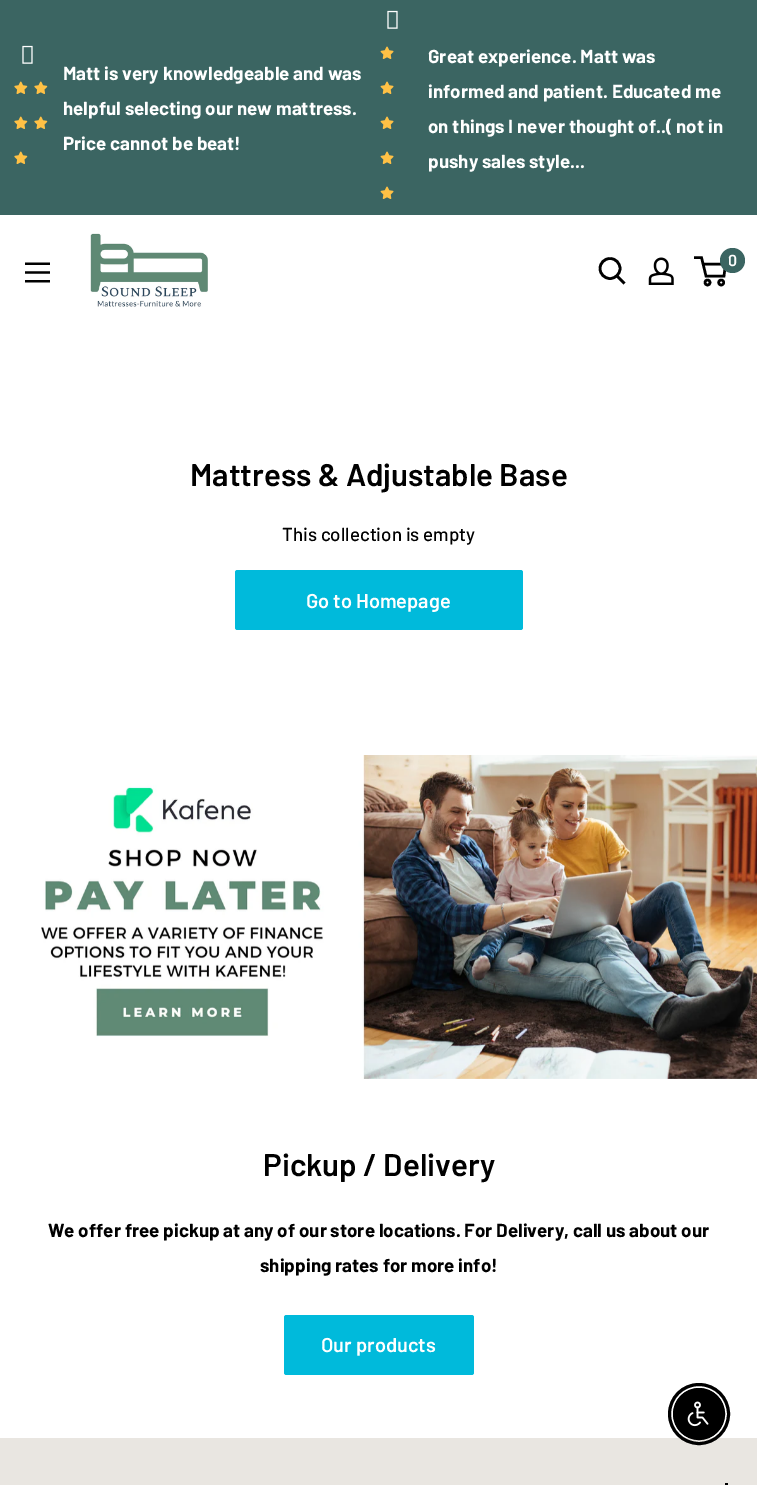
%!PS-Adobe-3.0
%%BoundingBox: 0 0 757 1485
%%LanguageLevel: 3
%%Pages: 1
%%EndComments
%%BeginProlog
/setink { 3 { 255 div 3 1 roll } repeat setrgbcolor } def
/usefont { [ exch dup neg 0 0 3 -1 roll 0 0 ] selectfont } def
/drawtext { setink usefont moveto show } def
/fillbox { setink rectfill } def
/disc { newpath 0 360 arc closepath } def
/rrect { 5 dict begin { /r /h /w /y /x } { exch def } forall
  x r add y moveto x w add y 2 copy h add r arct x w add y h add x 1 index r arct
  x y h add x y r arct x y 2 copy exch w add exch r arct closepath end } def
/drawimage { 5 dict begin { /h /w /y /x /name } { exch def } forall
  gsave x y translate w h scale
  w h 8 [w 0 0 h 0 0] name (r) file false 3 colorimage grestore end } def
%%EndProlog
%%BeginSetup
<< /PageSize [757 1485] >> setpagedevice
%%EndSetup
%%Page: 1 1
0 1485 translate 1 -1 scale
4 setmiterlimit
0 0 757 1485 255 255 255 fillbox
0 0 757 215 59 101 98 fillbox
(assets/img1.rgb) 22 45 11 19 drawimage
(assets/img2.rgb) 14 81 14 13 drawimage
(assets/img2.rgb) 34 81 14 13 drawimage
(assets/img2.rgb) 14 116 14 13 drawimage
(assets/img2.rgb) 34 116 14 13 drawimage
(assets/img2.rgb) 14 151 14 13 drawimage
(Matt is very knowledgeable and was) 63 80 /Barlow-Bold 18.75 255 255 255 drawtext
(helpful selecting our new mattress.) 63 115 /Barlow-Bold 18.75 255 255 255 drawtext
(Price cannot be beat!) 63 150 /Barlow-Bold 18.75 255 255 255 drawtext
(assets/img1.rgb) 387 10 11 19 drawimage
(assets/img3.rgb) 380 46 14 13 drawimage
(assets/img3.rgb) 380 81 14 13 drawimage
(assets/img3.rgb) 380 116 14 13 drawimage
(assets/img3.rgb) 380 151 14 13 drawimage
(assets/img3.rgb) 380 186 14 13 drawimage
(Great experience. Matt was) 428 63 /Barlow-Bold 18.75 255 255 255 drawtext
(informed and patient. Educated me) 428 98 /Barlow-Bold 18.75 255 255 255 drawtext
(on things I never thought of..\( not in) 428 133 /Barlow-Bold 18.75 255 255 255 drawtext
(pushy sales style...) 428 168 /Barlow-Bold 18.75 255 255 255 drawtext
(assets/img4.rgb) 90 233 118 74 drawimage
0 0 0 setink
2.6 setlinewidth
2 setlinecap
623.5 282.5 moveto 617 276 lineto stroke
0 setlinecap
610 268.5 10 disc stroke
(assets/img5.rgb) 648 257 26 28 drawimage
2.5 setlinewidth
707.5 282.5 2.5 disc stroke
721.2 282.5 2.5 disc stroke
703 264 moveto 725.5 264 lineto 724 276 lineto 706 276 lineto 701.5 257.5 lineto 694 257.5 lineto stroke
59 101 98 setink
732.5 260.5 12.5 disc fill
(0) 728 266 /Barlow-SemiBold 16 255 255 255 drawtext
(assets/img6.rgb) 25 262 25 21 drawimage
(Mattress & Adjustable Base) 190 486 /Barlow-SemiBold 31.25 0 0 0 drawtext
(This collection is empty) 282 541 /Barlow-Medium 18.75 0 0 0 drawtext
0 186 219 setink
235 570 288 60 2.5 rrect fill
(Go to Homepage) 306 608 /Barlow-SemiBold 20 255 255 255 drawtext
(assets/img7.rgb) 41 755 716 324 drawimage
(Pickup / Delivery) 263 1176 /Barlow-SemiBold 31.25 0 0 0 drawtext
(We offer free pickup at any of our store locations. For Delivery, call us about our) 48 1237 /Barlow-Bold 18.75 0 0 0 drawtext
(shipping rates for more info!) 260 1272 /Barlow-Bold 18.75 0 0 0 drawtext
0 186 219 setink
284 1315 190 60 2.5 rrect fill
(Our products) 321 1352 /Barlow-SemiBold 20 255 255 255 drawtext
0 1438 757 47 233 230 225 fillbox
0 0 0 setink
3 setlinewidth
699 1414 29.5 disc stroke
699 1414 25.5 disc gsave fill grestore
1 setlinewidth
stroke
(assets/img8.rgb) 687 1401 22 26 drawimage
725 1483 3 2 0 0 0 fillbox
showpage
%%EOF
